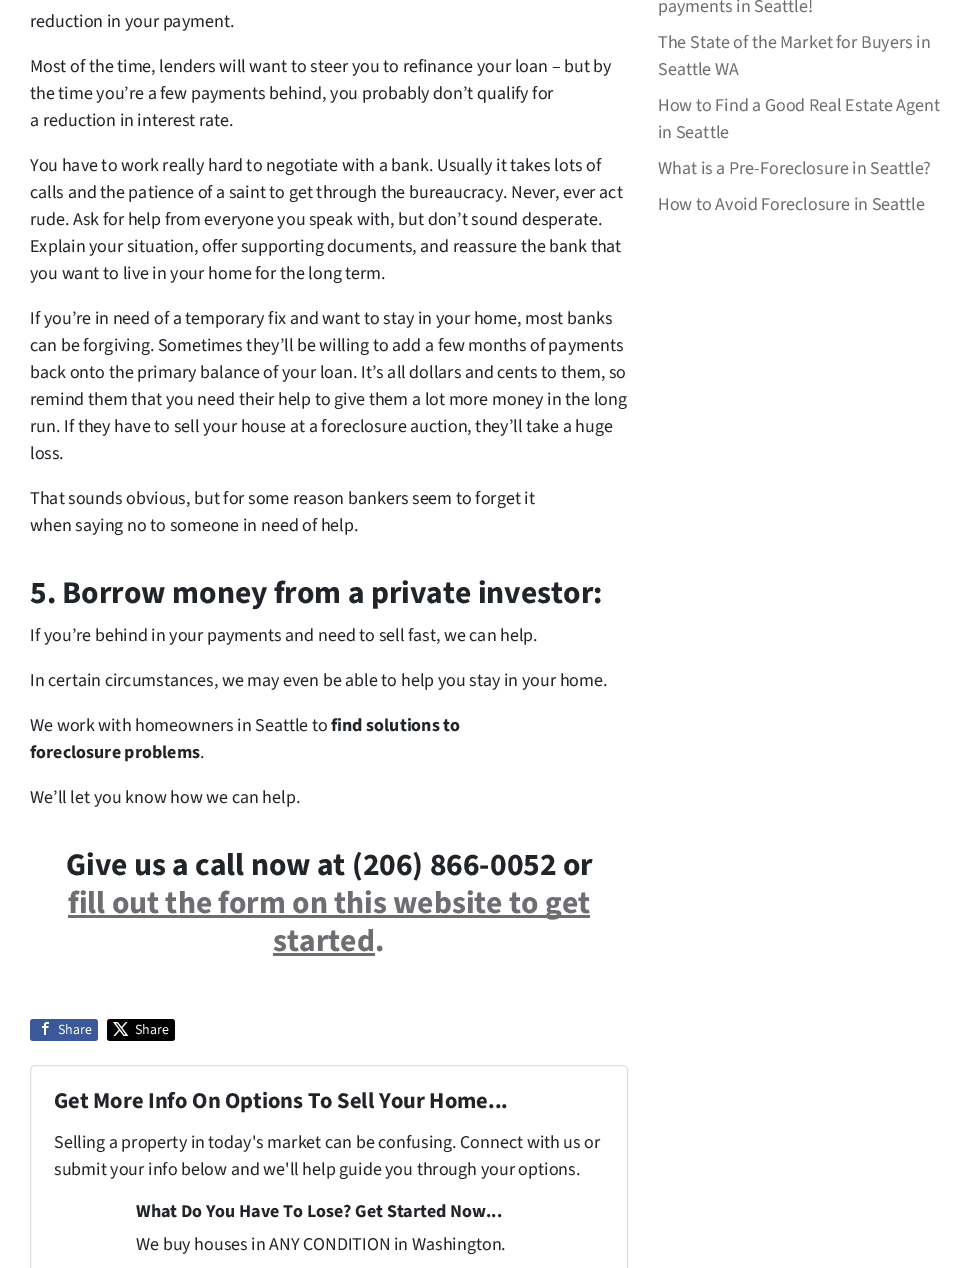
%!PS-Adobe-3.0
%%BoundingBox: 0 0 972 1268
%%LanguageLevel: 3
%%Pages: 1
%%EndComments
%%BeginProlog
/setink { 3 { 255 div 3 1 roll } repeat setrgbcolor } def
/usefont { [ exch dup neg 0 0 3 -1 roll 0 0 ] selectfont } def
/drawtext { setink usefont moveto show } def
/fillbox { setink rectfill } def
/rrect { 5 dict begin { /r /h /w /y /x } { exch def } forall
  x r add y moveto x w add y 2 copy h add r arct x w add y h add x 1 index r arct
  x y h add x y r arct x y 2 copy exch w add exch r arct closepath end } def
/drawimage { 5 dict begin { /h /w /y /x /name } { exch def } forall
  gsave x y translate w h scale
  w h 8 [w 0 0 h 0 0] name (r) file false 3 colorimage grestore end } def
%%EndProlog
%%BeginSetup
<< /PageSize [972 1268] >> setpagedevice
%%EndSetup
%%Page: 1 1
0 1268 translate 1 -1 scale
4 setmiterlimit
0 0 972 1268 255 255 255 fillbox
(reduction in your payment.) 30 27 /SourceSans3-Regular 18 33 37 41 drawtext
(Most of the time, lenders will want to steer you to refinance your loan – but by) 30 72 /SourceSans3-Regular 18 33 37 41 drawtext
(the time you’re a few payments behind, you probably don’t qualify for) 30 99 /SourceSans3-Regular 18 33 37 41 drawtext
(a reduction in interest rate.) 30 126 /SourceSans3-Regular 18 33 37 41 drawtext
(You have to work really hard to negotiate with a bank. Usually it takes lots of) 30 171 /SourceSans3-Regular 18 33 37 41 drawtext
(calls and the patience of a saint to get through the bureaucracy. Never, ever act) 30 198 /SourceSans3-Regular 18 33 37 41 drawtext
(rude. Ask for help from everyone you speak with, but don’t sound desperate.) 30 225 /SourceSans3-Regular 18 33 37 41 drawtext
(Explain your situation, offer supporting documents, and reassure the bank that) 30 252 /SourceSans3-Regular 18 33 37 41 drawtext
(you want to live in your home for the long term.) 30 279 /SourceSans3-Regular 18 33 37 41 drawtext
(If you’re in need of a temporary fix and want to stay in your home, most banks) 30 324 /SourceSans3-Regular 18 33 37 41 drawtext
(can be forgiving. Sometimes they’ll be willing to add a few months of payments) 30 351 /SourceSans3-Regular 18 33 37 41 drawtext
(back onto the primary balance of your loan. It’s all dollars and cents to them, so) 30 378 /SourceSans3-Regular 18 33 37 41 drawtext
(remind them that you need their help to give them a lot more money in the long) 30 405 /SourceSans3-Regular 18 33 37 41 drawtext
(run. If they have to sell your house at a foreclosure auction, they’ll take a huge) 30 432 /SourceSans3-Regular 18 33 37 41 drawtext
(loss.) 30 459 /SourceSans3-Regular 18 33 37 41 drawtext
(That sounds obvious, but for some reason bankers seem to forget it) 30 504 /SourceSans3-Regular 18 33 37 41 drawtext
(when saying no to someone in need of help.) 30 531 /SourceSans3-Regular 18 33 37 41 drawtext
(5. Borrow money from a private investor:) 30 603 /SourceSans3-Bold 31.5 33 37 41 drawtext
(If you’re behind in your payments and need to sell fast, we can help.) 30 641 /SourceSans3-Regular 18 33 37 41 drawtext
(In certain circumstances, we may even be able to help you stay in your home.) 30 686 /SourceSans3-Regular 18 33 37 41 drawtext
(We work with homeowners in Seattle to) 30 731 /SourceSans3-Regular 18 33 37 41 drawtext
(find solutions to) 331 731 /SourceSans3-Bold 18 33 37 41 drawtext
(foreclosure problems) 30 758 /SourceSans3-Bold 18 33 37 41 drawtext
(.) 200 758 /SourceSans3-Regular 18 33 37 41 drawtext
(We’ll let you know how we can help.) 30 803 /SourceSans3-Regular 18 33 37 41 drawtext
(Give us a call now at \(206\) 866-0052 or) 66 875 /SourceSans3-Bold 31.5 33 37 41 drawtext
68 915 522 3 109 110 113 fillbox
(fill out the form on this website to get) 68 913 /SourceSans3-Bold 31.5 109 110 113 drawtext
(started.) 273 951 /SourceSans3-Bold 31.5 109 110 113 drawtext
273 953 102 3 109 110 113 fillbox
59 89 152 setink
30 1019 68 22 3 rrect fill
(assets/img1.rgb) 42 1022 7 13 drawimage
(Share) 58 1034 /SourceSans3-Regular 14 255 255 255 drawtext
0 0 0 setink
107 1019 68 22 3 rrect fill
(assets/img2.rgb) 113 1022 16 14 drawimage
(Share) 135 1034 /SourceSans3-Regular 14 255 255 255 drawtext
223 223 223 setink
30.5 1065.5 597 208 4.5 rrect stroke
(Get More Info On Options To Sell Your Home...) 54 1108 /SourceSans3-Bold 22.5 33 37 41 drawtext
(Selling a property in today's market can be confusing. Connect with us or) 54 1148 /SourceSans3-Regular 18 33 37 41 drawtext
(submit your info below and we'll help guide you through your options.) 54 1175 /SourceSans3-Regular 18 33 37 41 drawtext
(What Do You Have To Lose? Get Started Now...) 136 1217 /SourceSans3-Bold 18 33 37 41 drawtext
(We buy houses in ANY CONDITION in Washington.) 136 1250 /SourceSans3-Regular 18 33 37 41 drawtext
(payments in Seattle!) 658 12 /SourceSans3-Regular 18 109 110 113 drawtext
(The State of the Market for Buyers in) 658 48 /SourceSans3-Regular 18 109 110 113 drawtext
(Seattle WA) 658 75 /SourceSans3-Regular 18 109 110 113 drawtext
(How to Find a Good Real Estate Agent) 658 111 /SourceSans3-Regular 18 109 110 113 drawtext
(in Seattle) 658 138 /SourceSans3-Regular 18 109 110 113 drawtext
(What is a Pre-Foreclosure in Seattle?) 658 174 /SourceSans3-Regular 18 109 110 113 drawtext
(How to Avoid Foreclosure in Seattle) 658 210 /SourceSans3-Regular 18 109 110 113 drawtext
showpage
%%EOF
